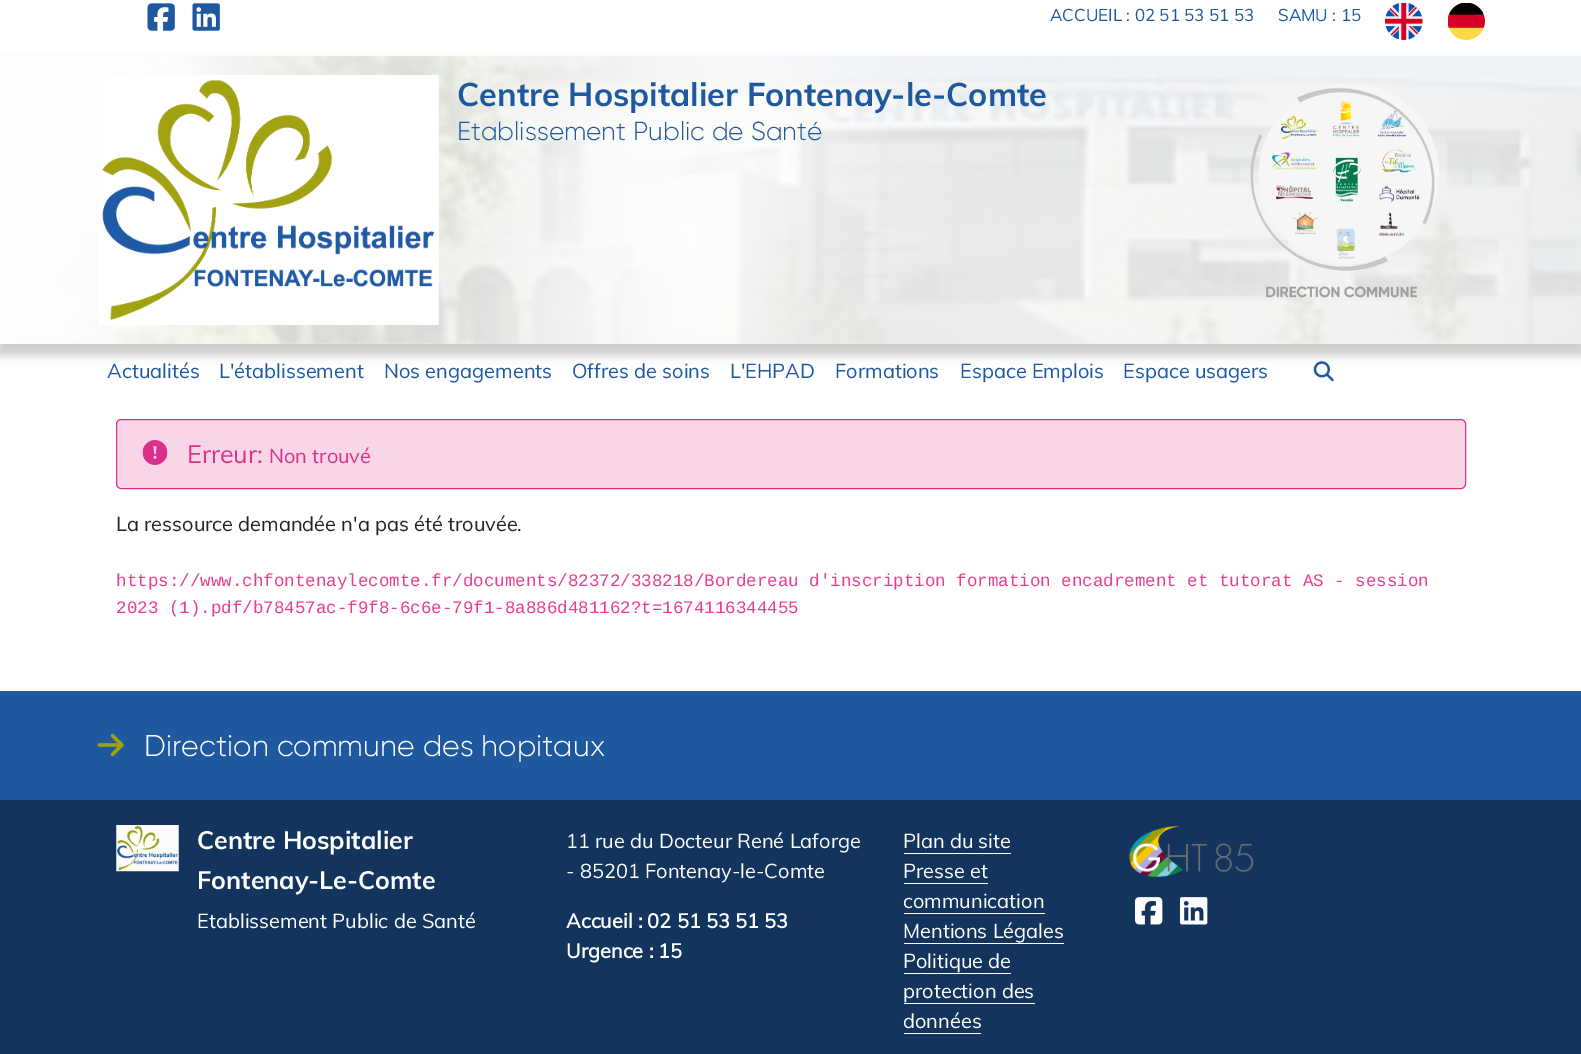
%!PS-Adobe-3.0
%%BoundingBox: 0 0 1581 1054
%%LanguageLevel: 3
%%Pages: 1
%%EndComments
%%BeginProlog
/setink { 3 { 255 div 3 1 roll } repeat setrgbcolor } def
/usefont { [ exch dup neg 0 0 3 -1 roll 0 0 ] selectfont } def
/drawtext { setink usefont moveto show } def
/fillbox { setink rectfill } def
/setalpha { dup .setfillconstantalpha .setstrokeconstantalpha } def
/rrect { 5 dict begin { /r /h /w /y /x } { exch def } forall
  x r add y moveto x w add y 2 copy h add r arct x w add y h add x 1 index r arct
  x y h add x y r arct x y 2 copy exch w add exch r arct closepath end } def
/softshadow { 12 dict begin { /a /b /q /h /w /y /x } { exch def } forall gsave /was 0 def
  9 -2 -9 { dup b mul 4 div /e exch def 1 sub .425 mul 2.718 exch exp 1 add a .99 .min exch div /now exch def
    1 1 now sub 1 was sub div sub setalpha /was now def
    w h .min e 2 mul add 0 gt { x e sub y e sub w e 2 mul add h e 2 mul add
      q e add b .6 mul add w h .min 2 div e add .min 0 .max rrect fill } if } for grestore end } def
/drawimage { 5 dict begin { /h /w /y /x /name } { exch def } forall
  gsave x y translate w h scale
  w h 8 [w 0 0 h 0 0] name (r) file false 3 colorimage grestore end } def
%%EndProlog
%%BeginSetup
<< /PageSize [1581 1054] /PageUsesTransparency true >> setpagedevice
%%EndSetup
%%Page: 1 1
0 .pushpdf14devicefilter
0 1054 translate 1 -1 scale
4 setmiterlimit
0 0 1581 1054 255 255 255 fillbox
(assets/img1.rgb) 147 3 28 28 drawimage
(assets/img2.rgb) 192 3 28 28 drawimage
(ACCUEIL : 02 51 53 51 53) 1050 21 /Muli-Regular 17 30 89 159 drawtext
(SAMU : 15) 1278 21 /Muli-Regular 17 30 89 159 drawtext
(assets/img3.rgb) 1385 3 38 37 drawimage
(assets/img4.rgb) 1448 3 37 37 drawimage
(assets/img5.rgb) 0 56 1581 288 drawimage
gsave
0 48 moveto 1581 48 lineto 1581 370 lineto 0 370 lineto closepath 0 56 moveto 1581 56 lineto 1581 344 lineto 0 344 lineto closepath eoclip newpath
0 0 0 setink
-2 63 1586 292 0 4.5 0.2 softshadow
grestore
0.75 setalpha
0 56 1581 288 255 255 255 fillbox
1 setalpha
(assets/img6.rgb) 98 75 341 250 drawimage
(Centre Hospitalier Fontenay-le-Comte) 457 106 /Muli-Bold 32.5 30 89 159 drawtext
(Etablissement Public de Santé) 457 140 /Gilroy-Light 26 30 89 159 drawtext
(assets/img7.rgb) 1250 84 189 214 drawimage
(Actualités) 107 378 /Muli-Regular 20 30 89 159 drawtext
(L'établissement) 219 378 /Muli-Regular 20 30 89 159 drawtext
(Nos engagements) 384 378 /Muli-Regular 20 30 89 159 drawtext
(Offres de soins) 572 378 /Muli-Regular 20 30 89 159 drawtext
(L'EHPAD) 730 378 /Muli-Regular 20 30 89 159 drawtext
(Formations) 835 378 /Muli-Regular 20 30 89 159 drawtext
(Espace Emplois) 960 378 /Muli-Regular 20 30 89 159 drawtext
(Espace usagers) 1123 378 /Muli-Regular 20 30 89 159 drawtext
(assets/img8.rgb) 1313 361 21 21 drawimage
248 214 232 setink
116.5 419.5 1349 69 4.5 rrect gsave fill grestore
220 49 139 setink
stroke
(assets/img9.rgb) 142 440 26 25 drawimage
(Erreur:) 187 463 /Muli-Regular 25 220 49 139 drawtext
(Non trouvé) 269 463 /Muli-Regular 20 220 49 139 drawtext
(La ressource demandée n'a pas été trouvée.) 116 531 /Muli-Regular 20 33 37 41 drawtext
(https://www.chfontenaylecomte.fr/documents/82372/338218/Bordereau d'inscription formation encadrement et tutorat AS - session) 116 586 /LiberationMono-Regular 17.5 232 62 140 drawtext
(2023 \(1\).pdf/b78457ac-f9f8-6c6e-79f1-8a886d481162?t=1674116344455) 116 613 /LiberationMono-Regular 17.5 232 62 140 drawtext
0 691 1581 109 30 89 159 fillbox
(assets/img10.rgb) 97 733 27 24 drawimage
(Direction commune des hopitaux) 144 756 /Gilroy-Light 30 255 255 255 drawtext
0 800 1581 254 18 52 93 fillbox
(assets/img11.rgb) 116 825 63 47 drawimage
(Centre Hospitalier) 197 849 /Muli-Bold 25 255 255 255 drawtext
(Fontenay-Le-Comte) 197 889 /Muli-Bold 25 255 255 255 drawtext
(Etablissement Public de Santé) 197 928 /Muli-Regular 20 255 255 255 drawtext
(11 rue du Docteur René Laforge) 566 848 /Muli-Regular 20 255 255 255 drawtext
(- 85201 Fontenay-le-Comte) 566 878 /Muli-Regular 20 255 255 255 drawtext
(Accueil : 02 51 53 51 53) 566 928 /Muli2-Bold 20 255 255 255 drawtext
(Urgence : 15) 566 958 /Muli2-Bold 20 255 255 255 drawtext
(Plan du site) 903 848 /Muli-Regular 20 255 255 255 drawtext
904 853 107 1 255 255 255 fillbox
(Presse et) 903 878 /Muli-Regular 20 255 255 255 drawtext
904 883 84 1 255 255 255 fillbox
(communication) 903 908 /Muli-Regular 20 255 255 255 drawtext
904 913 141 1 255 255 255 fillbox
(Mentions Légales) 903 938 /Muli-Regular 20 255 255 255 drawtext
904 943 160 1 255 255 255 fillbox
(Politique de) 903 968 /Muli-Regular 20 255 255 255 drawtext
904 973 107 1 255 255 255 fillbox
(protection des) 903 998 /Muli-Regular 20 255 255 255 drawtext
904 1003 131 1 255 255 255 fillbox
(données) 903 1028 /Muli-Regular 20 255 255 255 drawtext
904 1033 77 1 255 255 255 fillbox
(assets/img12.rgb) 1128 825 126 53 drawimage
(assets/img13.rgb) 1135 897 28 28 drawimage
(assets/img14.rgb) 1180 897 28 28 drawimage
.poppdf14devicefilter showpage
%%EOF
